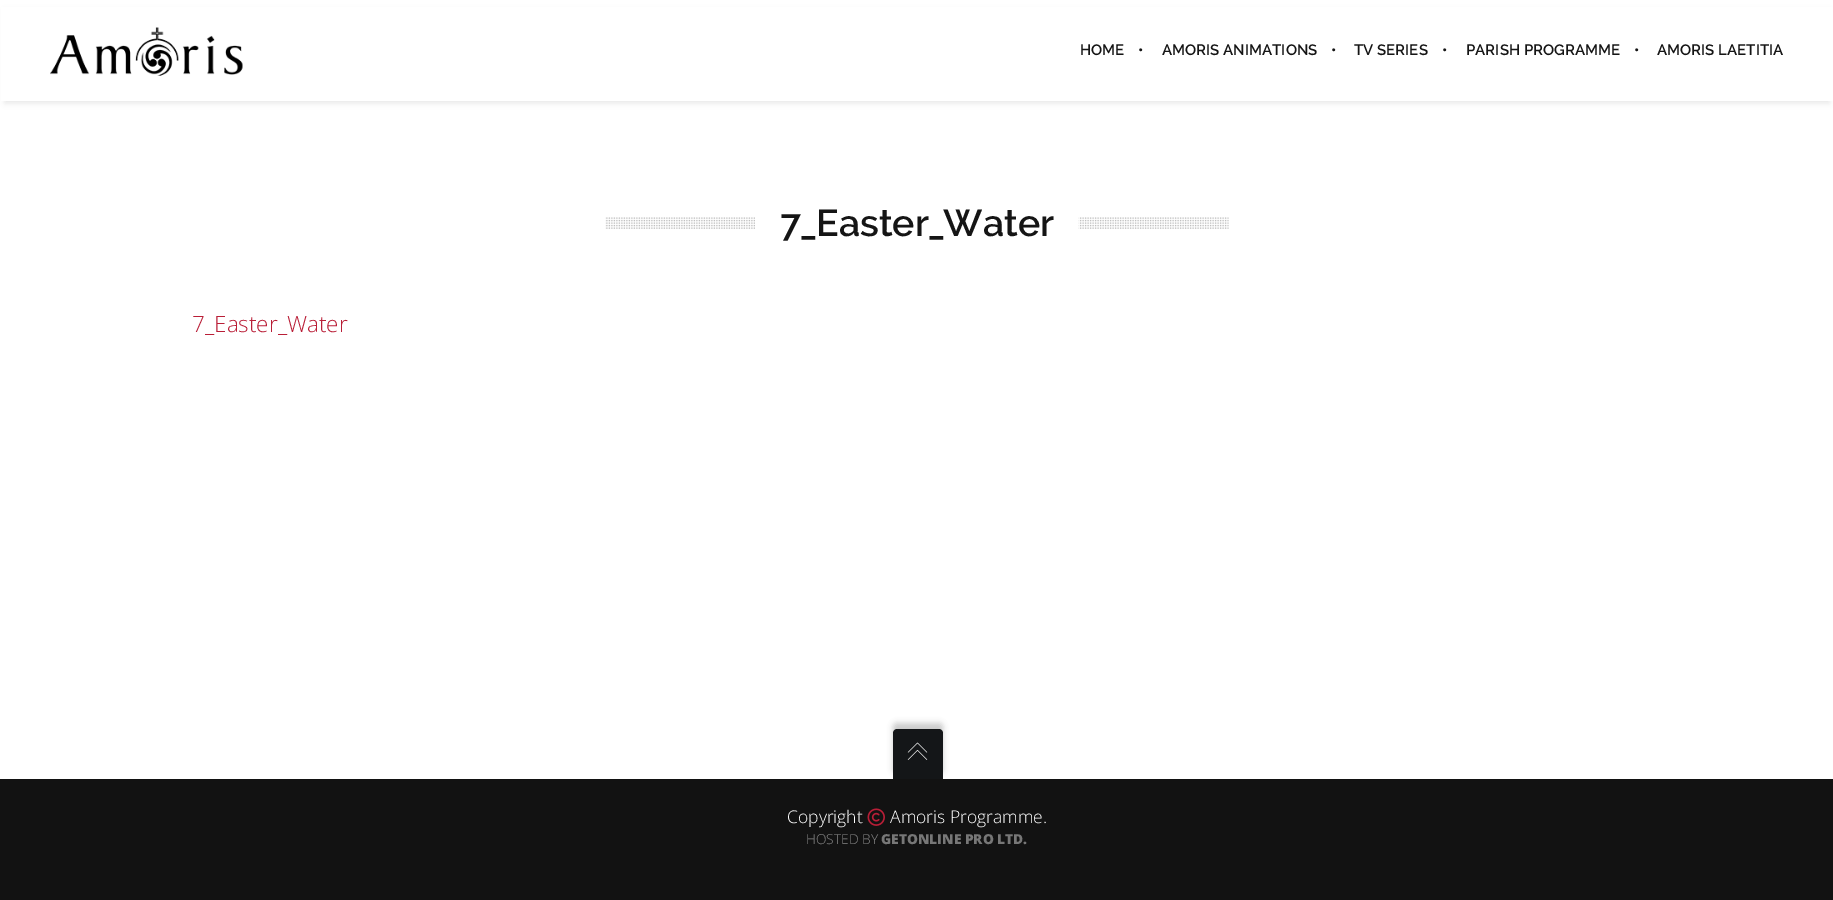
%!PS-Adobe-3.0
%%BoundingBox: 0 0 1833 900
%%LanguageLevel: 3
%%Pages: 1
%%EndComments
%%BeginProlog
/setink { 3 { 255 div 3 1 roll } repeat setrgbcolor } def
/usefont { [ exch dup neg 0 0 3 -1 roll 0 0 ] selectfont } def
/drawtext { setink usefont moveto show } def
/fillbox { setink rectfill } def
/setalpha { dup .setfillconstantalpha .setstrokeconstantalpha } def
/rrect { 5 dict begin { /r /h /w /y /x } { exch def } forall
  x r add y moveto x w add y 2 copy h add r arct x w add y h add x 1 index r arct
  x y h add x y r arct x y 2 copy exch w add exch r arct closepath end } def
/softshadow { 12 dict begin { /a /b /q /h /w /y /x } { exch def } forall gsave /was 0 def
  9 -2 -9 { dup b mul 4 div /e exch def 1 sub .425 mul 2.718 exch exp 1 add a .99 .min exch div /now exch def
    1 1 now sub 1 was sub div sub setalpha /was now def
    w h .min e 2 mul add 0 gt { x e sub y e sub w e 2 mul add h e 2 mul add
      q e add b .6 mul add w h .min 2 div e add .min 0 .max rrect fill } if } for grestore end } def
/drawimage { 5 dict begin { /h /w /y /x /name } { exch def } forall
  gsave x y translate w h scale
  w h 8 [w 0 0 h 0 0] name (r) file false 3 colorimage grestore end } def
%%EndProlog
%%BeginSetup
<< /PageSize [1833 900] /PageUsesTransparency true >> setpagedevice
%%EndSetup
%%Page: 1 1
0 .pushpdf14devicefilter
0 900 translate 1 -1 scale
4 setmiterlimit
0 0 1833 900 255 255 255 fillbox
0 0 0 setink
5 11 1824 92 0 3 0.1 softshadow
1 7 1832 94 255 255 255 fillbox
(assets/img1.rgb) 50 27 193 49 drawimage
(HOME) 1080 55 /Raleway-SemiBold 15 21 21 21 drawtext
(•) 1138 55 /Raleway-SemiBold 15 21 21 21 drawtext
(AMORIS ANIMATIONS) 1162 55 /Raleway-SemiBold 15 21 21 21 drawtext
(•) 1331 55 /Raleway-SemiBold 15 21 21 21 drawtext
(TV SERIES) 1354 55 /Raleway-SemiBold 15 21 21 21 drawtext
(•) 1442 55 /Raleway-SemiBold 15 21 21 21 drawtext
(PARISH PROGRAMME) 1466 55 /Raleway-SemiBold 15 21 21 21 drawtext
(•) 1634 55 /Raleway-SemiBold 15 21 21 21 drawtext
(AMORIS LAETITIA) 1657 55 /Raleway-SemiBold 15 21 21 21 drawtext
(assets/img2.rgb) 605 217 150 12 drawimage
(7_Easter_Water) 780 236 /Raleway-SemiBold 37.5 21 21 21 drawtext
(assets/img3.rgb) 1078 217 151 12 drawimage
(7_Easter_Water) 192 332 /OpenSans-Light 22.5 185 30 55 drawtext
0 779 1833 121 18 18 18 fillbox
0 0 0 setink
893 723 50 50 4 3 0.2 softshadow
20 22 24 setink
897 729 moveto 939 729 lineto 941 729 943 731 943 733 curveto 943 779 lineto 893 779 lineto 893 733 lineto 893 731 895 729 897 729 curveto closepath fill
(assets/img4.rgb) 907 742 21 18 drawimage
(Copyright) 787 823 /OpenSans-Light 17.5 255 255 255 drawtext
(assets/img5.rgb) 867 808 18 18 drawimage
(Amoris Programme.) 890 823 /OpenSans-Light 17.5 255 255 255 drawtext
(HOSTED BY) 806 844 /OpenSans-Light 13.75 137 137 137 drawtext
(GETONLINE PRO LTD.) 881 844 /OpenSans-ExtraBold 13.75 119 119 119 drawtext
.poppdf14devicefilter showpage
%%EOF
